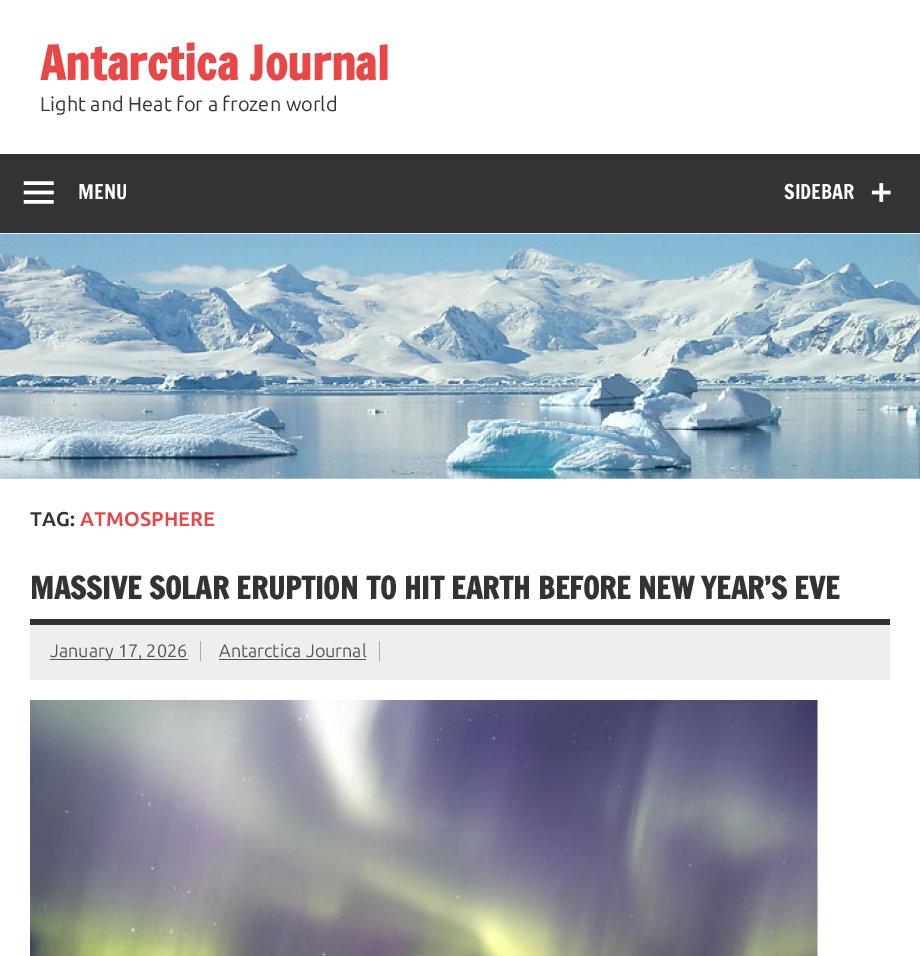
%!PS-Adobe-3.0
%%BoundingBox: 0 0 920 956
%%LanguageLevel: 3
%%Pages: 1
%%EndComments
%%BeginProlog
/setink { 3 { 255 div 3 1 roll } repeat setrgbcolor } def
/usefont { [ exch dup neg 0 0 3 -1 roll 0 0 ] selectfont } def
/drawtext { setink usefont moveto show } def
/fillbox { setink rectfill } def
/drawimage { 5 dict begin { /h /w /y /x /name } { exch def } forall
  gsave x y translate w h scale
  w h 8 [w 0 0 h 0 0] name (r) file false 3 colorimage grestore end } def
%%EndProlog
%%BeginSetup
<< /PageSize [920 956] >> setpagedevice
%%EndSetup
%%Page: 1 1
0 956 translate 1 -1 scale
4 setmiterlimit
0 0 920 956 255 255 255 fillbox
(Antarctica Journal) 40 80 /FrancoisOne-Bold 46 232 71 71 drawtext
(Light and Heat for a frozen world) 40 111 /Ubuntu-Regular 20 51 51 51 drawtext
0 154 920 79 51 51 51 fillbox
(assets/img1.rgb) 23 181 31 23 drawimage
(MENU) 78 199 /FrancoisOne-Regular 20 255 255 255 drawtext
(SIDEBAR) 784 199 /FrancoisOne-Regular 20 255 255 255 drawtext
(assets/img2.rgb) 871 183 20 19 drawimage
(assets/img3.rgb) 0 233 920 246 drawimage
(TAG:) 30 526 /Ubuntu-Bold 20 51 51 51 drawtext
(ATMOSPHERE) 80 526 /Ubuntu-Bold 20 232 71 71 drawtext
30 619 860 6 51 51 51 fillbox
(MASSIVE SOLAR ERUPTION TO HIT EARTH BEFORE NEW YEAR’S EVE) 30 599 /FrancoisOne-Bold 30 51 51 51 drawtext
30 625 860 55 238 238 238 fillbox
50 659 138 1 85 85 85 fillbox
(January 17, 2026) 50 657 /Ubuntu-Regular 18 85 85 85 drawtext
200 641 1 20 170 170 170 fillbox
(Antarctica Journal) 219 657 /Ubuntu-Regular 18 85 85 85 drawtext
379 641 1 20 170 170 170 fillbox
219 659 147 1 85 85 85 fillbox
(assets/img4.rgb) 30 700 788 256 drawimage
showpage
%%EOF
